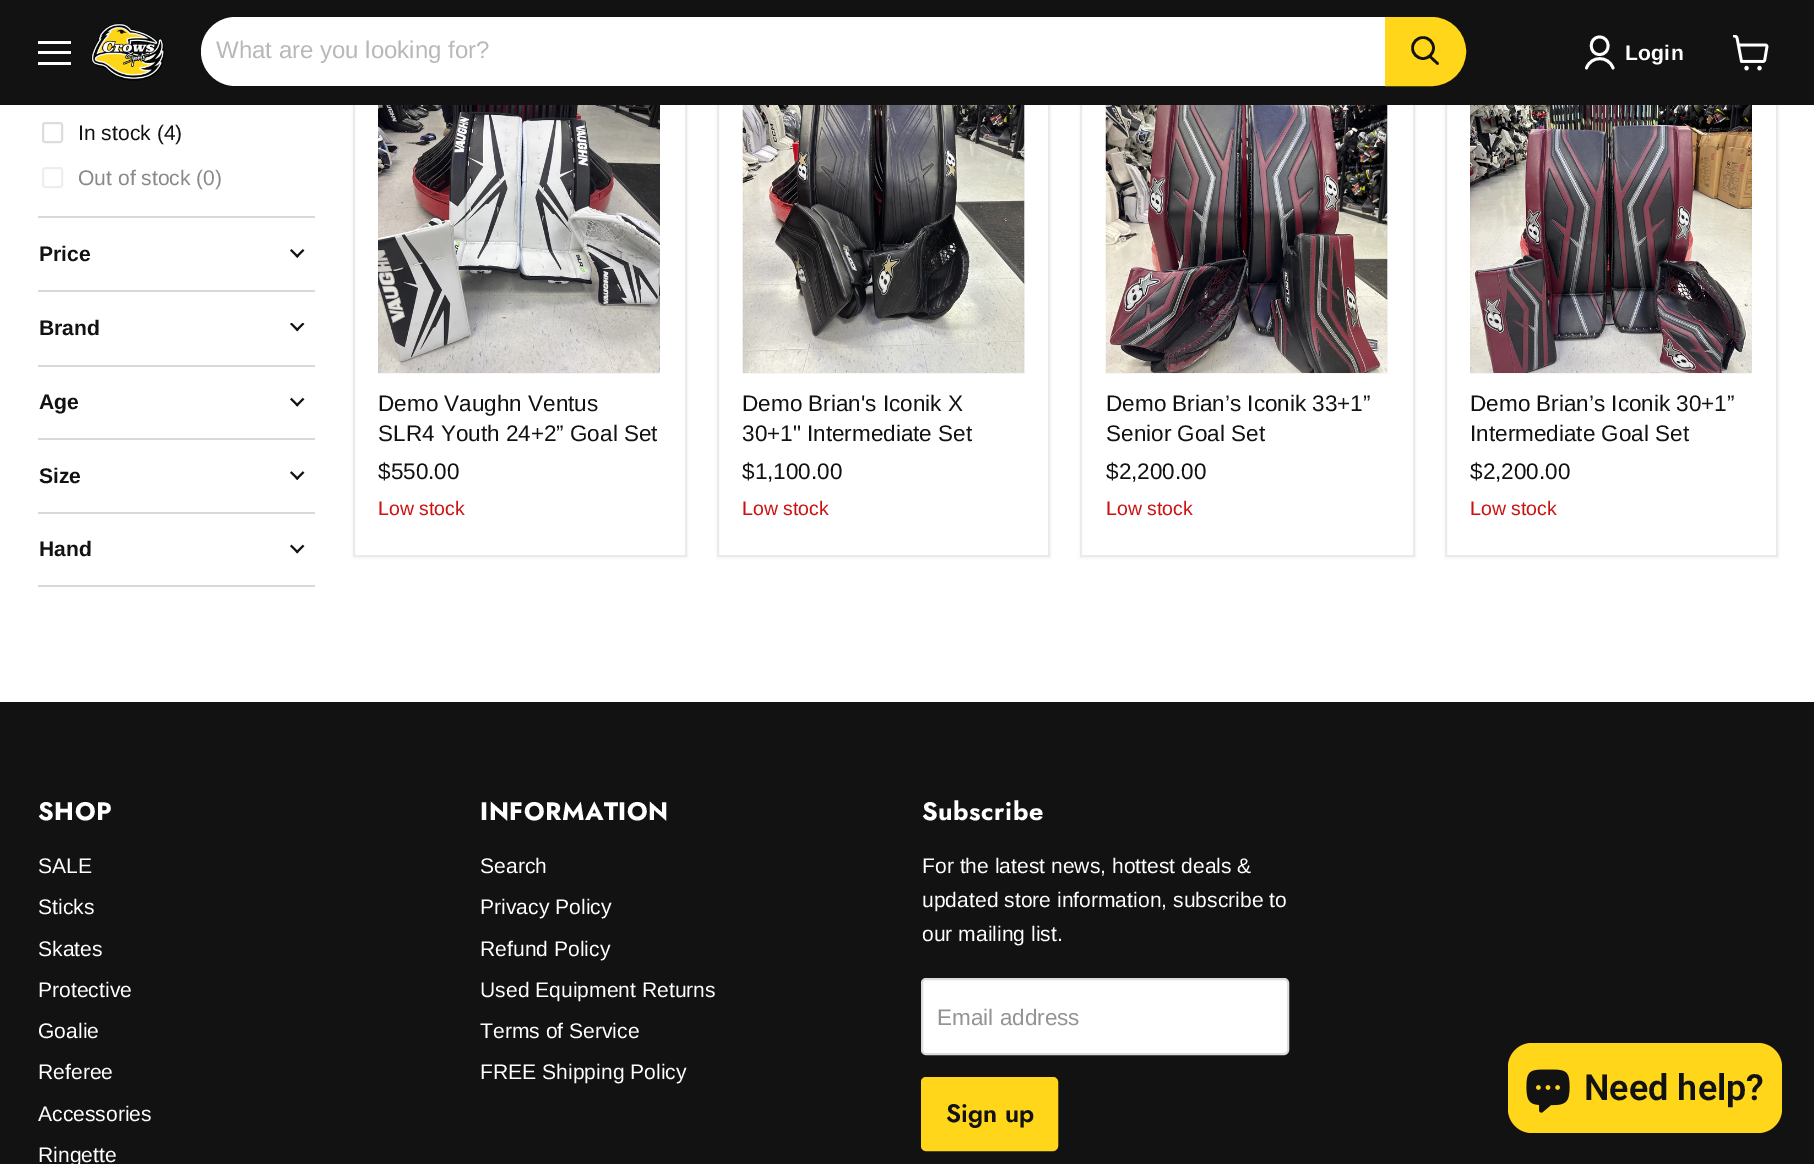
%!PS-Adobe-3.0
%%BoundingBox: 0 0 1814 1164
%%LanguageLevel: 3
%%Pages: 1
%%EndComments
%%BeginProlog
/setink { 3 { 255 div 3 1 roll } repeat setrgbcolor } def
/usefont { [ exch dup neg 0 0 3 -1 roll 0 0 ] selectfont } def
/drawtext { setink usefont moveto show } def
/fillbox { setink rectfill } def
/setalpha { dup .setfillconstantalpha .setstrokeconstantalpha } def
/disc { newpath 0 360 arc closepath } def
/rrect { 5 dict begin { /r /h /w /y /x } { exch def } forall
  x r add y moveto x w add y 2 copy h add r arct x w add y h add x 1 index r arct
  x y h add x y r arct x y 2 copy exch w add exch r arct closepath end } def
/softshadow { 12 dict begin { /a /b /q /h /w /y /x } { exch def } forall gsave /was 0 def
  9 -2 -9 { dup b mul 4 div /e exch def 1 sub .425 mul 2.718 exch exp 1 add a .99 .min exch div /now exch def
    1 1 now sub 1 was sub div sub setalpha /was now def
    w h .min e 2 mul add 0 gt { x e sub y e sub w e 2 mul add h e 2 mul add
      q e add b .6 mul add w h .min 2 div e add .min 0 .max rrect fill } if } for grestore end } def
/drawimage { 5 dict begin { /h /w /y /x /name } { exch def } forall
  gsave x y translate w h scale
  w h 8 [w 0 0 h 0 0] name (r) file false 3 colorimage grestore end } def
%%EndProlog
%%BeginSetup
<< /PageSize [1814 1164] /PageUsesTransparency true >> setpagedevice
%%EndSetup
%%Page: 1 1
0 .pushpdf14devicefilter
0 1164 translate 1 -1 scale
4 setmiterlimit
0 0 1814 1164 255 255 255 fillbox
128 128 128 setink
353 68 334 490 0 3 0.11 softshadow
355 105 330 450 255 255 255 fillbox
235 235 235 setink
2 setlinewidth
354 67 332 489 rectstroke
128 128 128 setink
717 68 333 490 0 3 0.11 softshadow
719 105 329 450 255 255 255 fillbox
235 235 235 setink
718 67 331 489 rectstroke
128 128 128 setink
1080 68 335 490 0 3 0.11 softshadow
1082 105 331 450 255 255 255 fillbox
235 235 235 setink
1081 67 333 489 rectstroke
128 128 128 setink
1445 68 333 490 0 3 0.11 softshadow
1447 105 329 450 255 255 255 fillbox
235 235 235 setink
1446 67 331 489 rectstroke
0 0 1814 105 18 18 18 fillbox
38 41 33 3 255 255 255 fillbox
38 51 33 3 255 255 255 fillbox
38 62 33 3 255 255 255 fillbox
(assets/img1.rgb) 91 23 74 58 drawimage
235.5 17 moveto 1385 17 lineto 1385 86 lineto 235.5 86 lineto 216.5 86 201 70.5 201 51.5 curveto 201 32.5 216.5 17 235.5 17 curveto closepath fill
(What are you looking for?) 216 58 /LiberationSans-Regular 24 184 184 184 drawtext
255 214 25 setink
1386 18 moveto 1431.5 18 lineto 1450 18 1465 33 1465 51.5 curveto 1465 70 1450 85 1431.5 85 curveto 1386 85 lineto closepath gsave fill grestore
stroke
18 18 18 setink
2.6 setlinewidth
1 setlinecap
1437.5 63.5 moveto 1430 56.5 lineto stroke
0 setlinecap
1423 48 10.5 disc stroke
255 255 255 setink
2.8 setlinewidth
1 setlinecap
1 setlinejoin
1599.5 54.5 moveto 1611 54.5 1611 37 1599.5 37 curveto 1588.5 37 1588.5 54.5 1599.5 54.5 curveto closepath 1613 68 moveto 1608.5 55.5 1591 55.5 1586.5 68 curveto stroke
/LiberationSans-Bold 21.1 usefont
1625 60 moveto 0.25 0 (Login) ashow
(assets/img2.rgb) 1733 35 36 36 drawimage
221 221 221 setink
2 setlinewidth
0 setlinecap
0 setlinejoin
43 123 19 19 2 rrect stroke
(In stock \(4\)) 78 140 /LiberationSans-Regular 21.1 18 18 18 drawtext
238 238 238 setink
43 168 19 19 2 rrect stroke
(Out of stock \(0\)) 78 185 /LiberationSans-Regular 21.1 137 137 137 drawtext
38 216 277 2 217 217 217 fillbox
(Price) 39 261 /LiberationSans-Bold 21.1 18 18 18 drawtext
(assets/img3.rgb) 290 249 15 9 drawimage
38 290 277 2 217 217 217 fillbox
(Brand) 39 335 /LiberationSans-Bold 21.1 18 18 18 drawtext
(assets/img4.rgb) 290 323 15 9 drawimage
38 365 277 2 217 217 217 fillbox
(Age) 39 409 /LiberationSans-Bold 21.1 18 18 18 drawtext
(assets/img5.rgb) 290 397 15 10 drawimage
38 438 277 2 217 217 217 fillbox
(Size) 39 483 /LiberationSans-Bold 21.1 18 18 18 drawtext
(assets/img6.rgb) 290 471 15 9 drawimage
38 512 277 2 217 217 217 fillbox
38 585 277 2 217 217 217 fillbox
(Hand) 39 556 /LiberationSans-Bold 21.1 18 18 18 drawtext
(assets/img7.rgb) 290 544 15 10 drawimage
(assets/img8.rgb) 378 105 282 268 drawimage
378 373 282 1 246 246 246 fillbox
(Demo Vaughn Ventus) 378 411 /LiberationSans-Regular 22.5 18 18 18 drawtext
(SLR4 Youth 24+2” Goal Set) 378 441 /LiberationSans-Regular 22.5 18 18 18 drawtext
($550.00) 378 479 /LiberationSans-Regular 22.5 18 18 18 drawtext
(Low stock) 378 515 /LiberationSans-Regular 19.5 204 19 19 drawtext
743 105 282 269 246 246 246 fillbox
(assets/img9.rgb) 742 105 283 268 drawimage
(Demo Brian's Iconik X) 742 411 /LiberationSans-Regular 22.5 18 18 18 drawtext
(30+1" Intermediate Set) 742 441 /LiberationSans-Regular 22.5 18 18 18 drawtext
($1,100.00) 742 479 /LiberationSans-Regular 22.5 18 18 18 drawtext
(Low stock) 742 515 /LiberationSans-Regular 19.5 204 19 19 drawtext
1106 105 282 269 246 246 246 fillbox
(assets/img10.rgb) 1105 105 283 268 drawimage
(Demo Brian’s Iconik 33+1”) 1106 411 /LiberationSans-Regular 22.5 18 18 18 drawtext
(Senior Goal Set) 1106 441 /LiberationSans-Regular 22.5 18 18 18 drawtext
($2,200.00) 1106 479 /LiberationSans-Regular 22.5 18 18 18 drawtext
(Low stock) 1106 515 /LiberationSans-Regular 19.5 204 19 19 drawtext
(assets/img11.rgb) 1470 105 282 268 drawimage
1470 373 282 1 246 246 246 fillbox
(Demo Brian’s Iconik 30+1”) 1470 411 /LiberationSans-Regular 22.5 18 18 18 drawtext
(Intermediate Goal Set) 1470 441 /LiberationSans-Regular 22.5 18 18 18 drawtext
($2,200.00) 1470 479 /LiberationSans-Regular 22.5 18 18 18 drawtext
(Low stock) 1470 515 /LiberationSans-Regular 19.5 204 19 19 drawtext
0 702 1814 462 18 18 18 fillbox
/Jost-Bold 25.25 usefont
255 255 255 setink
38 820 moveto 0.5 0 (SHOP) ashow
(SALE) 38 873 /LiberationSans-Regular 21.1 255 255 255 drawtext
(Sticks) 38 914 /LiberationSans-Regular 21.1 255 255 255 drawtext
(Skates) 38 956 /LiberationSans-Regular 21.1 255 255 255 drawtext
(Protective) 38 997 /LiberationSans-Regular 21.1 255 255 255 drawtext
(Goalie) 38 1038 /LiberationSans-Regular 21.1 255 255 255 drawtext
(Referee) 38 1079 /LiberationSans-Regular 21.1 255 255 255 drawtext
(Accessories) 38 1121 /LiberationSans-Regular 21.1 255 255 255 drawtext
(Ringette) 38 1162 /LiberationSans-Regular 21.1 255 255 255 drawtext
/Jost-Bold 25.25 usefont
480 820 moveto 0.5 0 (INFORMATION) ashow
(Search) 480 873 /LiberationSans-Regular 21.1 255 255 255 drawtext
(Privacy Policy) 480 914 /LiberationSans-Regular 21.1 255 255 255 drawtext
(Refund Policy) 480 956 /LiberationSans-Regular 21.1 255 255 255 drawtext
(Used Equipment Returns) 480 997 /LiberationSans-Regular 21.1 255 255 255 drawtext
(Terms of Service) 480 1038 /LiberationSans-Regular 21.1 255 255 255 drawtext
(FREE Shipping Policy) 480 1079 /LiberationSans-Regular 21.1 255 255 255 drawtext
/Jost-Bold 25.25 usefont
922 820 moveto 0.5 0 (Subscribe) ashow
(For the latest news, hottest deals &) 922 873 /LiberationSans-Regular 21.1 255 255 255 drawtext
(updated store information, subscribe to) 922 907 /LiberationSans-Regular 21.1 255 255 255 drawtext
(our mailing list.) 922 941 /LiberationSans-Regular 21.1 255 255 255 drawtext
922 979 366 75 4 rrect gsave fill grestore
221 221 221 setink
stroke
(Email address) 937 1025 /LiberationSans-Regular 22.5 148 148 148 drawtext
255 214 25 setink
922 1078 135 72 4 rrect gsave fill grestore
stroke
(Sign up) 946 1122 /Jost-SemiBold 25.25 18 18 18 drawtext
255 214 25 setink
1508 1043 274 90 24 rrect fill
(assets/img12.rgb) 1526 1069 44 44 drawimage
(Need help?) 1584 1100 /Roboto-SemiBold 36 18 18 18 drawtext
.poppdf14devicefilter showpage
%%EOF
